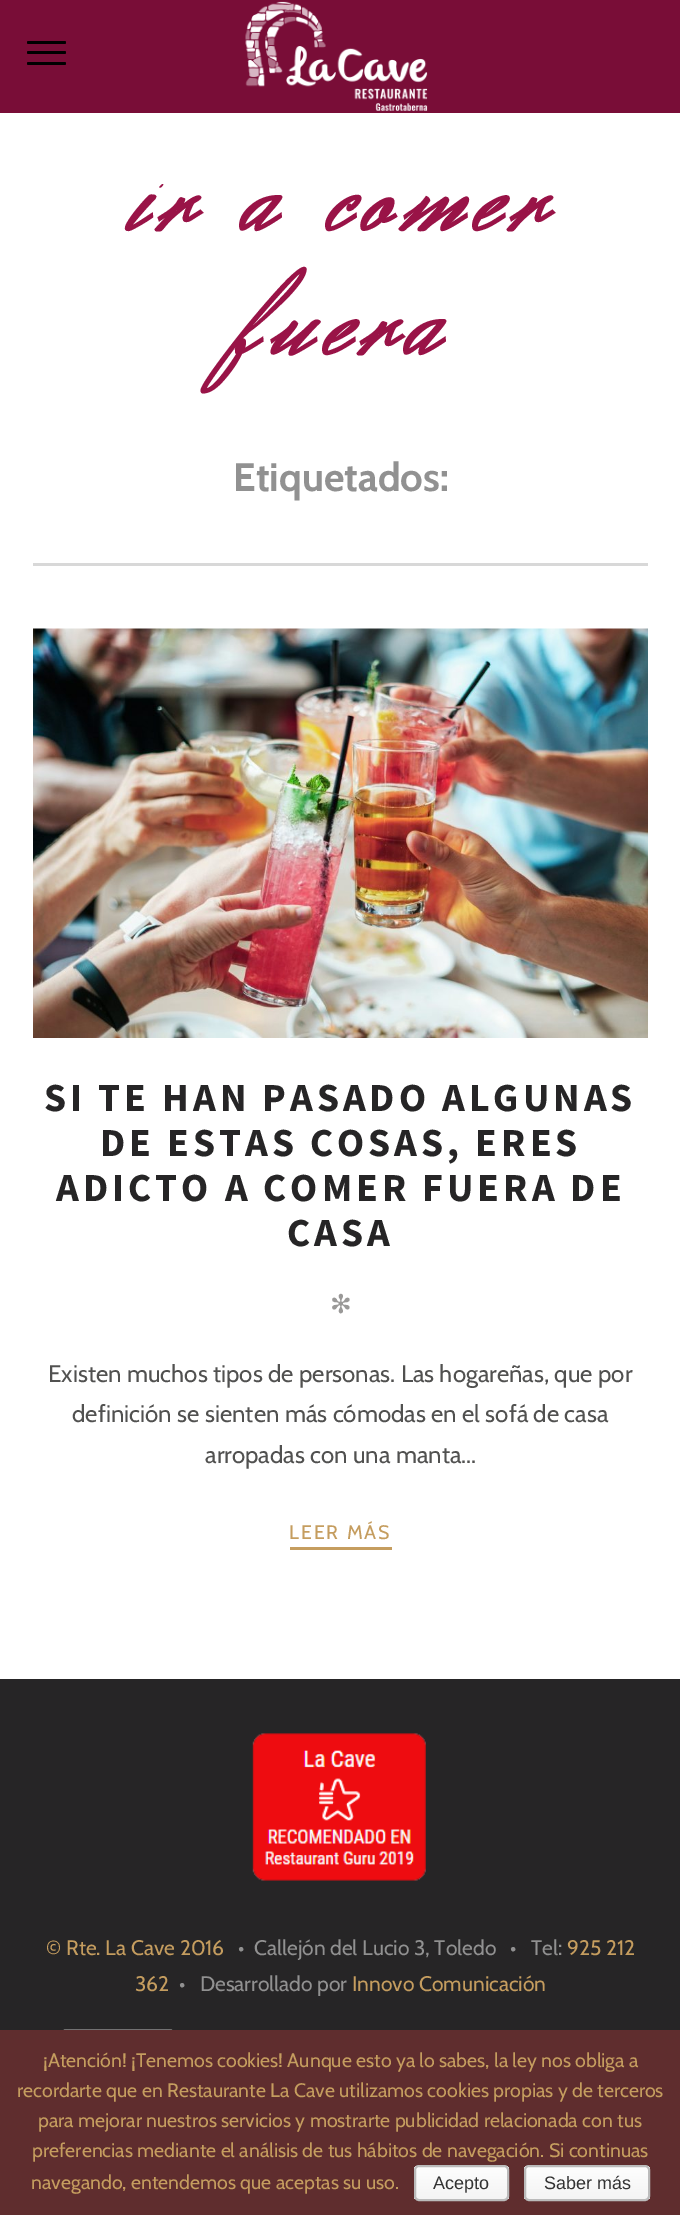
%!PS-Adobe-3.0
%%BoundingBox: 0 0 680 2215
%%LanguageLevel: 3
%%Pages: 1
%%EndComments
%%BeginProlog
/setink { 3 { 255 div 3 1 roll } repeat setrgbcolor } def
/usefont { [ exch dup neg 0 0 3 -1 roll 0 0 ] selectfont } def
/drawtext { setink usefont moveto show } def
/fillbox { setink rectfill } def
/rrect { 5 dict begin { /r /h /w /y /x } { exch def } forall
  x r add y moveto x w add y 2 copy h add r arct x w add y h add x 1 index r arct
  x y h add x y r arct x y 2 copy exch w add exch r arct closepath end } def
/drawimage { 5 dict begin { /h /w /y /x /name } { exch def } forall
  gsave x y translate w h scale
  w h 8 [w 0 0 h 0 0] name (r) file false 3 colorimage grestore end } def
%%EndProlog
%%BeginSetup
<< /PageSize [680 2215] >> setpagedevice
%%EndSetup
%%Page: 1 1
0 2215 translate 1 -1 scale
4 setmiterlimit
0 0 680 2215 255 255 255 fillbox
0 0 680 113 121 13 55 fillbox
0 0 0 setink
27 51 39 3 1.5 rrect fill
27 41 39 3 1.5 rrect fill
27 62 39 3 1.5 rrect fill
(assets/img1.rgb) 245 1 183 110 drawimage
/HerrVonMuellerhoff-Bold 120 usefont
153 19 71 setink
128 231 moveto 12 0 (ir a comer) ashow
232 355 moveto 12 0 (fuera) ashow
(Etiquetados:) 233 491 /Cabin-Bold 39.8 145 145 145 drawtext
33 563 615 3 216 216 216 fillbox
(assets/img2.rgb) 33 628 615 410 drawimage
/SourceSansPro-Bold 39.8 usefont
38 37 38 setink
44 1111 moveto 4 0 (SI TE HAN PASADO ALGUNAS) ashow
100 1156 moveto 4 0 (DE ESTAS COSAS, ERES) ashow
56 1201 moveto 4 0 (ADICTO A COMER FUERA DE) ashow
287 1246 moveto 4 0 (CASA) ashow
(✻) 330 1313 /DejaVuSans-Regular 26 154 153 152 drawtext
(Existen muchos tipos de personas. Las hogareñas, que por) 48 1382 /Cabin-Regular 24 81 81 80 drawtext
(definición se sienten más cómodas en el sofá de casa) 72 1422 /Cabin-Regular 24 81 81 80 drawtext
(arropadas con una manta...) 205 1463 /Cabin-Regular 24 81 81 80 drawtext
290 1547 102 3 197 157 95 fillbox
/Cabin-Regular 19.5 usefont
289 1539 moveto 2 0 (LEER MÁS) ashow
0 1679 680 351 38 37 38 fillbox
(assets/img3.rgb) 252 1733 174 148 drawimage
(© Rte. La Cave 2016) 46 1955 /Cabin-Regular 21 197 157 95 drawtext
(•  Callejón del Lucio 3, Toledo   •   Tel:) 238 1955 /Cabin-Regular 21 145 145 145 drawtext
(925 212) 567 1955 /Cabin-Regular 21 197 157 95 drawtext
(362) 135 1991 /Cabin-Regular 21 197 157 95 drawtext
(•   Desarrollado por) 179 1991 /Cabin-Regular 21 145 145 145 drawtext
(Innovo Comunicación) 352 1991 /Cabin-Regular 21 197 157 95 drawtext
(assets/img4.rgb) 63 2029 110 1 drawimage
0 2030 680 185 95 45 46 fillbox
(¡Atención! ¡Tenemos cookies! Aunque esto ya lo sabes, la ley nos obliga a) 43 2067 /Cabin-Regular 19.5 197 157 95 drawtext
(recordarte que en Restaurante La Cave utilizamos cookies propias y de terceros) 17 2097 /Cabin-Regular 19.5 197 157 95 drawtext
(para mejorar nuestros servicios y mostrarte publicidad relacionada con tus) 38 2127 /Cabin-Regular 19.5 197 157 95 drawtext
(preferencias mediante el análisis de tus hábitos de navegación. Si continuas) 32 2157 /Cabin-Regular 19.5 197 157 95 drawtext
(navegando, entendemos que aceptas su uso.) 31 2189 /Cabin-Regular 19.5 197 157 95 drawtext
gsave
414 2165 95 36 5 rrect clip newpath
gsave 414 2166 moveto 509 2166 lineto 509 2199 lineto 414 2199 lineto closepath clip newpath
<< /ShadingType 2 /ColorSpace /DeviceRGB /Coords [461 2166 461 2199] /Extend [true true] /Function << /FunctionType 2 /Domain [0 1] /C0 [0.996 0.996 0.996] /C1 [0.957 0.957 0.957] /N 1 >> >> shfill grestore
grestore
187 187 187 setink
2 setlinewidth
415 2166 93 34 4 rrect stroke
(Acepto) 433 2189 /LiberationSans-Regular 18 51 51 51 drawtext
gsave
524 2165 126 36 5 rrect clip newpath
gsave 524 2166 moveto 650 2166 lineto 650 2199 lineto 524 2199 lineto closepath clip newpath
<< /ShadingType 2 /ColorSpace /DeviceRGB /Coords [587 2166 587 2199] /Extend [true true] /Function << /FunctionType 2 /Domain [0 1] /C0 [0.996 0.996 0.996] /C1 [0.957 0.957 0.957] /N 1 >> >> shfill grestore
grestore
187 187 187 setink
525 2166 124 34 4 rrect stroke
(Saber más) 544 2189 /LiberationSans-Regular 18 51 51 51 drawtext
showpage
%%EOF
